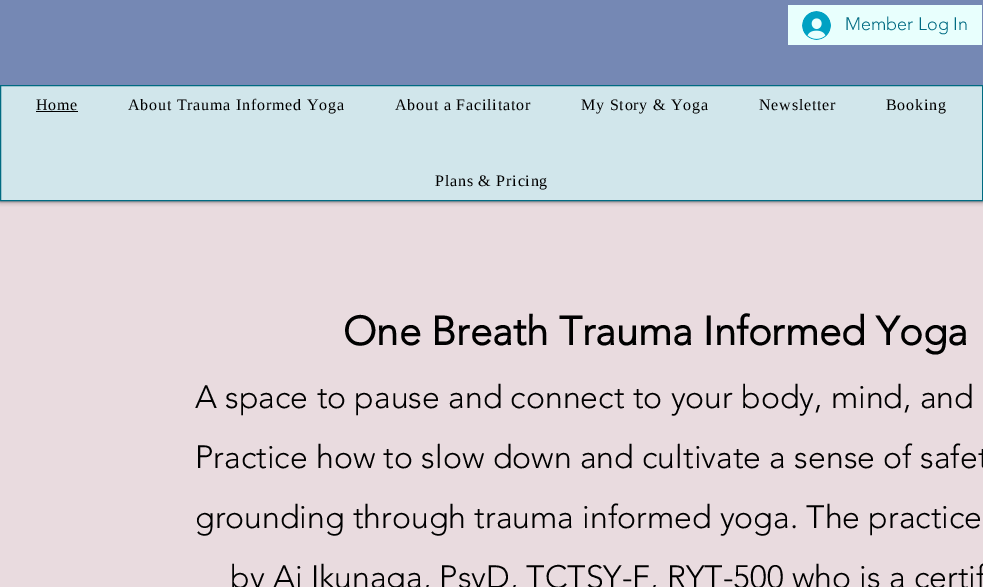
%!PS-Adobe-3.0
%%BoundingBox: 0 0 983 587
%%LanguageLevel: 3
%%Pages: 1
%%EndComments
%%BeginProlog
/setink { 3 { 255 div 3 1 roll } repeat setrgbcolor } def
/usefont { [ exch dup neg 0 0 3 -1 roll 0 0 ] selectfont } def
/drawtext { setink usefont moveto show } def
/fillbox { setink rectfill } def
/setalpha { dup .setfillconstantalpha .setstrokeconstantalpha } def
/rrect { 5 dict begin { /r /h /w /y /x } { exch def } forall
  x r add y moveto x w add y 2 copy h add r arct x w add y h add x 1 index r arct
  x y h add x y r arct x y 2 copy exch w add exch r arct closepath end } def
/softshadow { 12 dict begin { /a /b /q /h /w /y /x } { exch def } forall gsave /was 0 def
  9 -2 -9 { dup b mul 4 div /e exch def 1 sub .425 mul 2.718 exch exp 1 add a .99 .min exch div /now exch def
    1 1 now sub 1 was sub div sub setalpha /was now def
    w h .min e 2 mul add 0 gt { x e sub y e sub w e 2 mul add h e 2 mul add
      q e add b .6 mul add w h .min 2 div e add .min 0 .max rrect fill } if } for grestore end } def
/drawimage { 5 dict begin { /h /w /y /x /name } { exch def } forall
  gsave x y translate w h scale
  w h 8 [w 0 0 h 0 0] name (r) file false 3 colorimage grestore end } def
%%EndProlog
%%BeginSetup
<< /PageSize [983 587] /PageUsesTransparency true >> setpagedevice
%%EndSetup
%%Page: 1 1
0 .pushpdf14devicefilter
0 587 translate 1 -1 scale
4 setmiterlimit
0 0 983 587 233 219 223 fillbox
0 0 0 setink
0 0 983 201 0 2.5 0.7 softshadow
0 0 983 85 117 136 180 fillbox
788 5 194 40 232 255 253 fillbox
(assets/img1.rgb) 802 11 29 29 drawimage
(Member Log In) 845 30 /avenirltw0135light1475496-Light 18 0 107 130 drawtext
209 230 235 setink
0.5 85.5 moveto 982.5 85.5 lineto 982.5 200.5 lineto 0.5 200.5 lineto closepath gsave fill grestore
0 107 130 setink
stroke
/LiberationSerif-Regular 16 usefont
0 0 0 setink
36 110 moveto 0.8 0 (Home) ashow
36 111 42 1 0 0 0 fillbox
128 110 moveto 0.8 0 (About Trauma Informed Yoga) ashow
395 110 moveto 0.8 0 (About a Facilitator) ashow
581 110 moveto 0.8 0 (My Story & Yoga) ashow
759 110 moveto 0.8 0 (Newsletter) ashow
886 110 moveto 0.8 0 (Booking) ashow
435 186 moveto 0.8 0 (Plans & Pricing) ashow
(One Breath Trauma Informed Yoga) 343 345 /avenirltw0135light1475496-Bold 40 0 0 0 drawtext
(A space to pause and connect to your body, mind, and) 195 408 /avenirltw0135light1475496-Light 32 0 0 0 drawtext
(Practice how to slow down and cultivate a sense of safet) 195 468 /avenirltw0135light1475496-Light 32 0 0 0 drawtext
(grounding through trauma informed yoga. The practice) 195 528 /avenirltw0135light1475496-Light 32 0 0 0 drawtext
(by Ai Ikunaga, PsyD, TCTSY-F, RYT-500 who is a certif) 230 588 /avenirltw0135light1475496-Light 32 0 0 0 drawtext
.poppdf14devicefilter showpage
%%EOF
